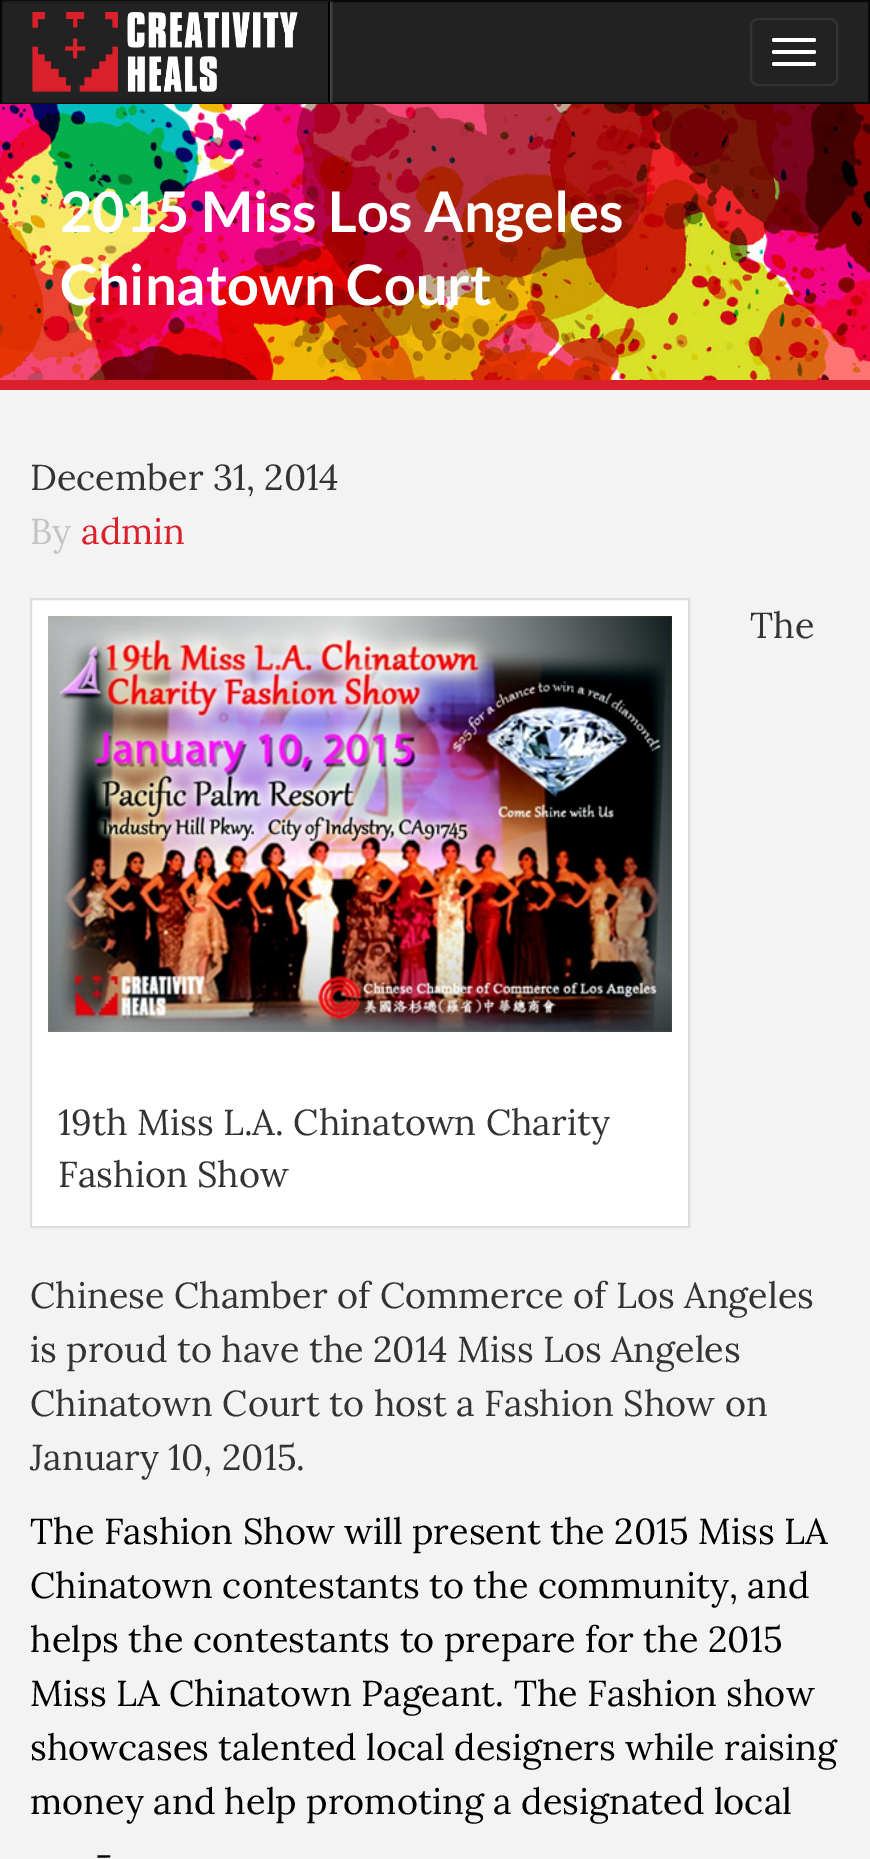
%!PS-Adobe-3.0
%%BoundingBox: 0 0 870 1859
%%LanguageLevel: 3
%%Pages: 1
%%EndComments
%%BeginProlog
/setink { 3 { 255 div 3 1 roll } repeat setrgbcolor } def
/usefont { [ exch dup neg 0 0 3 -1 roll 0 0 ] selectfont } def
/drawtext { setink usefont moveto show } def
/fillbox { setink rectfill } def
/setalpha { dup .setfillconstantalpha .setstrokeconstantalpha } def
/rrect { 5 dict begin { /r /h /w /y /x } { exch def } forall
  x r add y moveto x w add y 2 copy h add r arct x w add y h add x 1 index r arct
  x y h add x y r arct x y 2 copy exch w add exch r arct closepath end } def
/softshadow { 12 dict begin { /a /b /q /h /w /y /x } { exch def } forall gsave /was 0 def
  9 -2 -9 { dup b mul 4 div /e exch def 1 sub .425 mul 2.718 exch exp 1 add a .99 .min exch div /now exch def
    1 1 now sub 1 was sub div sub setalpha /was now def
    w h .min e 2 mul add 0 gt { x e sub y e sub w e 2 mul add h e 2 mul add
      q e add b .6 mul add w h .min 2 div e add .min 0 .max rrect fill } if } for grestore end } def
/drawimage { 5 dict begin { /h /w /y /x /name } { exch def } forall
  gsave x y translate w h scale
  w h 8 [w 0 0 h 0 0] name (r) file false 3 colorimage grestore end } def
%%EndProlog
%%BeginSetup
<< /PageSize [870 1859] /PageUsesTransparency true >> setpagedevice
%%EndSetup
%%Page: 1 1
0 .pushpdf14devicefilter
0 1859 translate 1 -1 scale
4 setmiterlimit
0 0 870 1859 255 255 255 fillbox
34 34 34 setink
1 1 moveto 869 1 lineto 869 103 lineto 1 103 lineto closepath gsave fill grestore
8 8 8 setink
2 setlinewidth
stroke
(assets/img2.rgb) 0 104 870 276 drawimage
gsave
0 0 moveto 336 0 lineto 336 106 lineto 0 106 lineto closepath 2 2 moveto 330 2 lineto 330 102 lineto 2 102 lineto closepath eoclip newpath
77 77 77 setink
4 2 328 100 0 1 1 softshadow
grestore
328 2 2 100 0 0 0 fillbox
(assets/img1.rgb) 32 12 266 80 drawimage
51 51 51 setink
751 19 86 66 7 rrect stroke
255 255 255 setink
772 38 44 4 2 rrect fill
772 50 44 4 2 rrect fill
772 62 44 4 2 rrect fill
0 380 870 10 217 32 43 fillbox
(2015 Miss Los Angeles) 60 232 /Lato-Bold 56 255 255 255 drawtext
(Chinatown Court) 60 305 /Lato-Bold 56 255 255 255 drawtext
0 390 870 1469 243 243 243 fillbox
(December 31, 2014) 30 490 /Lora-Regular 36 51 51 51 drawtext
(By) 30 544 /Lora-Regular 36 195 195 195 drawtext
(admin) 81 544 /Lora-Regular 36 217 32 43 drawtext
(The) 750 638 /Lora-Regular 36 51 51 51 drawtext
(Chinese Chamber of Commerce of Los Angeles) 30 1308 /Lora-Regular 36 51 51 51 drawtext
(is proud to have the 2014 Miss Los Angeles) 30 1362 /Lora-Regular 36 51 51 51 drawtext
(Chinatown Court to host a Fashion Show on) 30 1416 /Lora-Regular 36 51 51 51 drawtext
(January 10, 2015.) 30 1470 /Lora-Regular 36 51 51 51 drawtext
255 255 255 setink
31 599 moveto 689 599 lineto 689 1227 lineto 31 1227 lineto closepath gsave fill grestore
221 221 221 setink
stroke
(assets/img3.rgb) 48 616 624 416 drawimage
(19th Miss L.A. Chinatown Charity) 58 1135 /Lora-Regular 36 51 51 51 drawtext
(Fashion Show) 58 1187 /Lora-Regular 36 51 51 51 drawtext
(The Fashion Show will present the 2015 Miss LA) 30 1544 /Lora-Regular 36 0 0 0 drawtext
(Chinatown contestants to the community, and) 30 1598 /Lora-Regular 36 0 0 0 drawtext
(helps the contestants to prepare for the 2015) 30 1652 /Lora-Regular 36 0 0 0 drawtext
(Miss LA Chinatown Pageant. The Fashion show) 30 1706 /Lora-Regular 36 0 0 0 drawtext
(showcases talented local designers while raising) 30 1760 /Lora-Regular 36 0 0 0 drawtext
(money and help promoting a designated local) 30 1814 /Lora-Regular 36 0 0 0 drawtext
(-) 95 1868 /Lora-Regular 36 0 0 0 drawtext
.poppdf14devicefilter showpage
%%EOF
